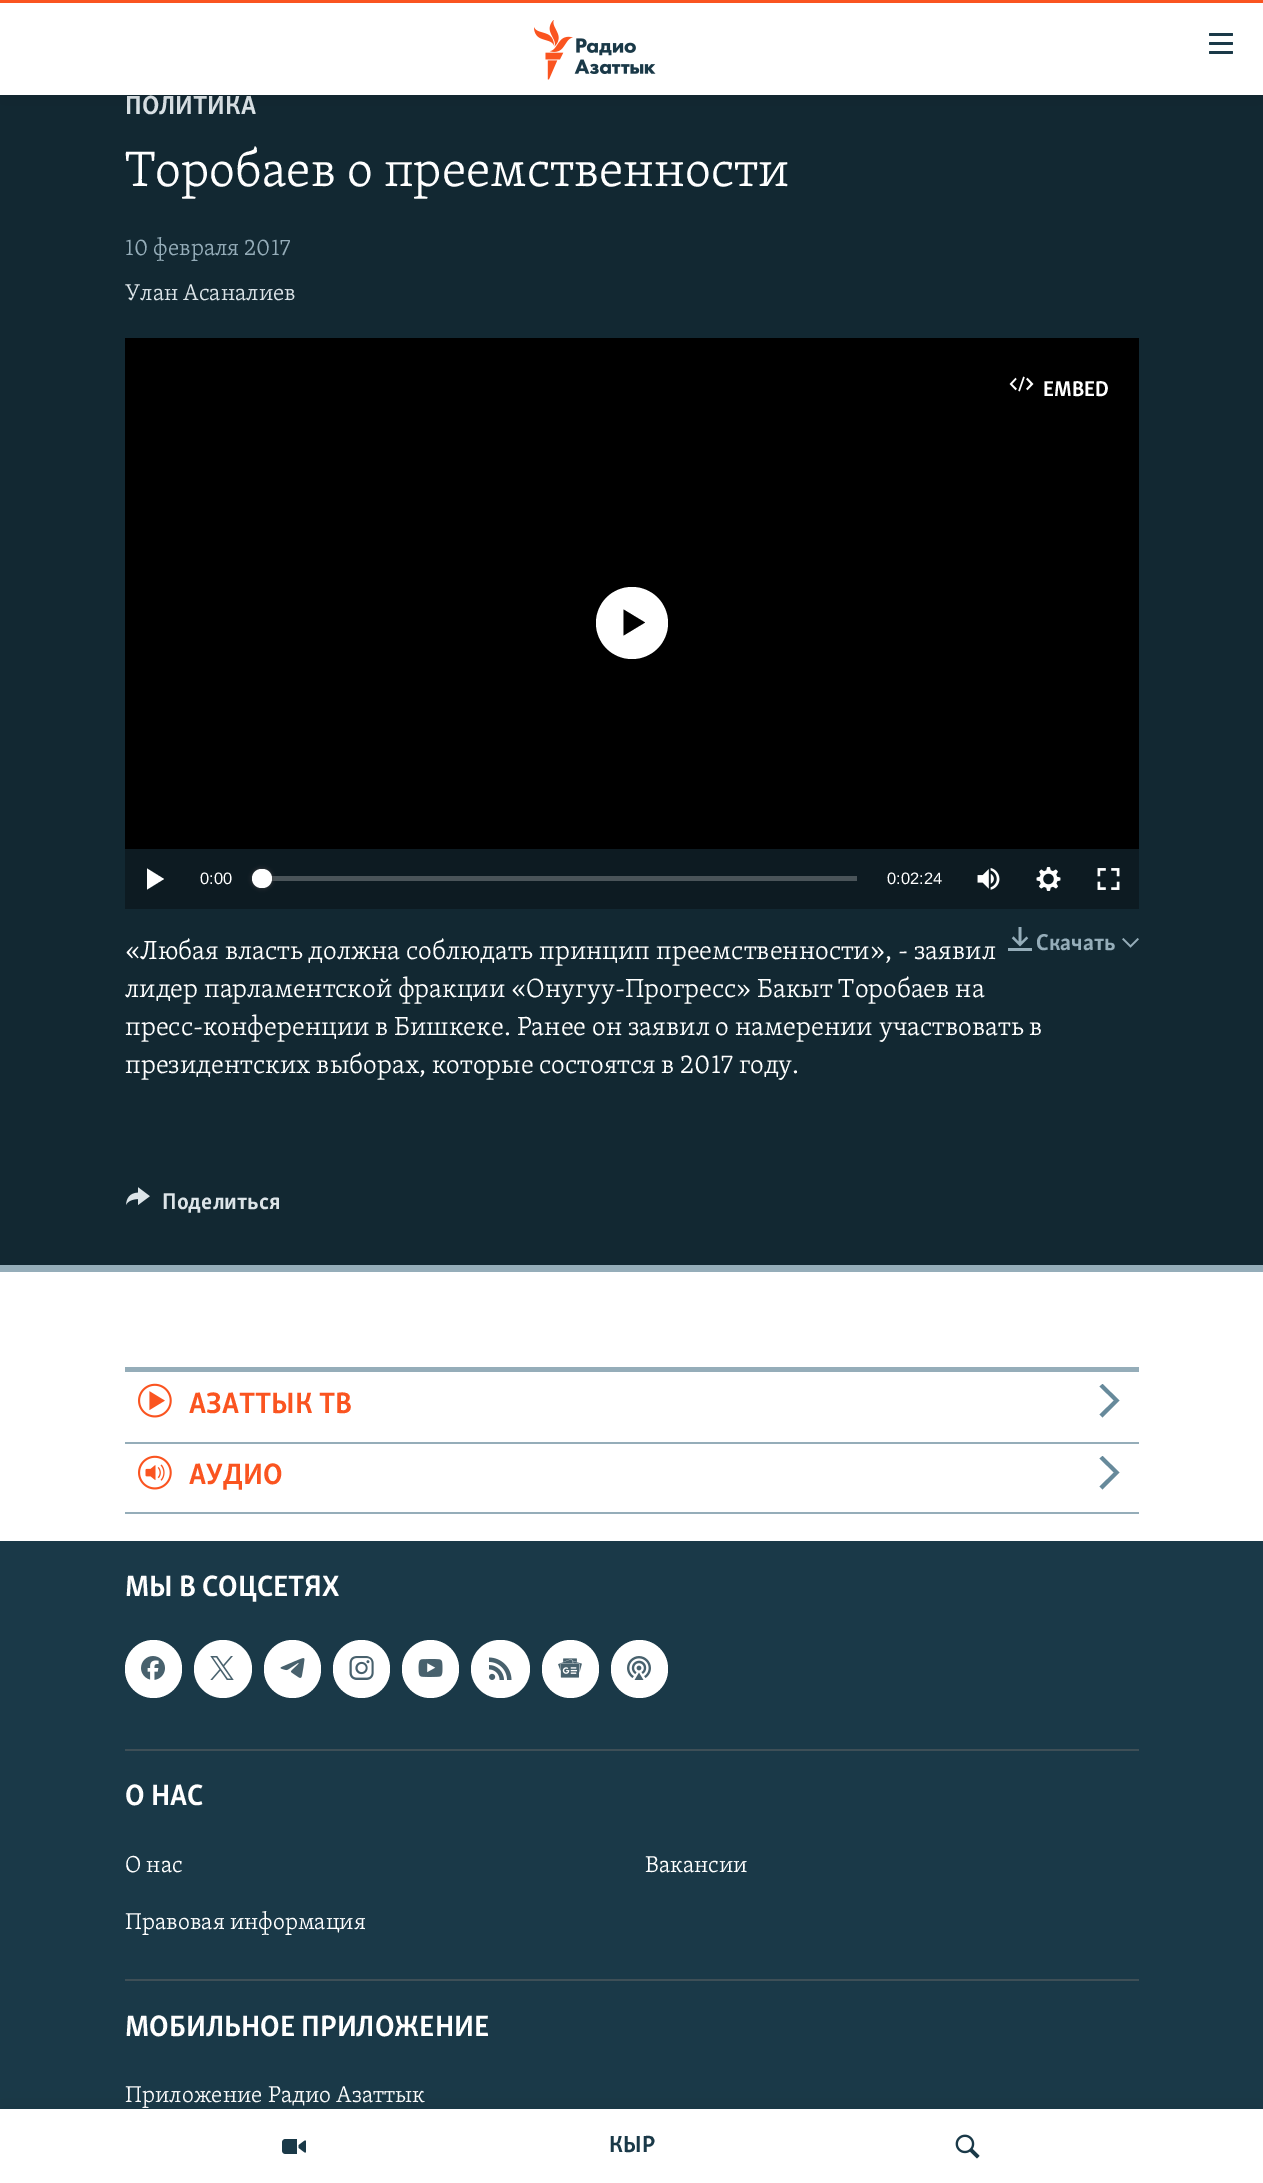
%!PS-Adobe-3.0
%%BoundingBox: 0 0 1263 2183
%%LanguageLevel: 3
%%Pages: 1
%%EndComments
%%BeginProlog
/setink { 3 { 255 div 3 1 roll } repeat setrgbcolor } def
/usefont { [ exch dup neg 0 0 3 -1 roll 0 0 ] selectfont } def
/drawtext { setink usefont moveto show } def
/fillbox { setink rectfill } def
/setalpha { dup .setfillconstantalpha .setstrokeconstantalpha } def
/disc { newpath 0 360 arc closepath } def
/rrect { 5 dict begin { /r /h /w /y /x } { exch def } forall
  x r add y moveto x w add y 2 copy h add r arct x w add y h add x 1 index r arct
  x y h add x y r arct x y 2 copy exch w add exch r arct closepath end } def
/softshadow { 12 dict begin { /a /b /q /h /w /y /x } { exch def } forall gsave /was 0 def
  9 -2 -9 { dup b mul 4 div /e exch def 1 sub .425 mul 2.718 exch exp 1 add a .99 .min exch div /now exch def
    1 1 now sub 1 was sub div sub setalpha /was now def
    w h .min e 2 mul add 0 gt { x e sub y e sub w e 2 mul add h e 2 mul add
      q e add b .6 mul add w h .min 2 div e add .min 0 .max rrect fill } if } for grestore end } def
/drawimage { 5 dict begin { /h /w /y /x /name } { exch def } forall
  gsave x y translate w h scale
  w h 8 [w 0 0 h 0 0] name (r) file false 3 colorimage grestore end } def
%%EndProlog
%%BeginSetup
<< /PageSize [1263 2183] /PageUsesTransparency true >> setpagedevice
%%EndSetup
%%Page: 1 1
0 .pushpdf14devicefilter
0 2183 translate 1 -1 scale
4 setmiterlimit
0 0 1263 2183 255 255 255 fillbox
0 95 1263 1170 18 40 50 fillbox
0 1265 1263 7 149 173 185 fillbox
(ПОЛИТИКА) 125 114 /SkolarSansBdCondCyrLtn-Bold 27 220 228 232 drawtext
(Торобаев о преемственности) 125 186 /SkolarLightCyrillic-Light 51.25 255 255 255 drawtext
(10 февраля 2017) 125 255 /SkolarLightCyrillic-Light 23.6 149 173 185 drawtext
(Улан Асаналиев) 125 300 /SkolarLightCyrillic-Light 23.6 220 228 232 drawtext
125 338 1014 511 0 0 0 fillbox
(assets/img1.rgb) 1009 376 25 16 drawimage
(EMBED) 1043 396 /SkolarSansBdCondCyrLtn-Bold 22 255 255 255 drawtext
632 623 36 disc fill
0 0 0 setink
623.5 635.5 moveto 645 622.5 lineto 623.5 609.5 lineto closepath fill
125 849 1014 60 13 27 34 fillbox
255 255 255 setink
147 889.5 moveto 164 879 lineto 147 868.5 lineto closepath fill
(0:00) 200 884 /LiberationSans-Regular 16.5 255 255 255 drawtext
271 876 586 5 74 84 89 fillbox
65 65 68 setink
252 869 20 19 9.5 2 1 softshadow
255 255 255 setink
252 869 20 19 9.5 rrect fill
(0:02:24) 887 884 /LiberationSans-Regular 16.5 255 255 255 drawtext
(assets/img2.rgb) 977 868 23 22 drawimage
(assets/img3.rgb) 1036 867 25 24 drawimage
(assets/img4.rgb) 1097 868 23 22 drawimage
(«Любая власть должна соблюдать принцип преемственности», - заявил) 125 959 /SkolarLightCyrillic-Light 27 255 255 255 drawtext
(лидер парламентской фракции «Онугуу-Прогресс» Бакыт Торобаев на) 125 997 /SkolarLightCyrillic-Light 27 255 255 255 drawtext
(пресс-конференции в Бишкеке. Ранее он заявил о намерении участвовать в) 125 1035 /SkolarLightCyrillic-Light 27 255 255 255 drawtext
(президентских выборах, которые состоятся в 2017 году.) 125 1073 /SkolarLightCyrillic-Light 27 255 255 255 drawtext
(assets/img5.rgb) 1008 927 24 24 drawimage
(Скачать) 1036 950 /SkolarSansBdCondCyrLtn-Bold 23.6 149 173 185 drawtext
(assets/img6.rgb) 1122 938 17 10 drawimage
(assets/img7.rgb) 126 1187 24 18 drawimage
(Поделиться) 162 1209 /SkolarSansBdCondCyrLtn-Bold 23.6 220 228 232 drawtext
125 1367 1014 5 149 173 185 fillbox
125 1442 1014 2 149 173 185 fillbox
(assets/img8.rgb) 138 1383 34 35 drawimage
(АЗАТТЫК ТВ) 189 1413 /SkolarSansBdCondCyrLtn-Bold 30.4 250 84 32 drawtext
103 138 155 setink
1102.5 1417.5 moveto 1119.5 1400.5 lineto 1102.5 1384 lineto 1099.5 1386.5 lineto 1114 1400.5 lineto 1099.5 1414.5 lineto closepath fill
125 1512 1014 2 149 173 185 fillbox
(assets/img9.rgb) 138 1455 34 35 drawimage
(АУДИО) 189 1484 /SkolarSansBdCondCyrLtn-Bold 30.4 250 84 32 drawtext
103 138 155 setink
1102.5 1489.5 moveto 1119.5 1472.5 lineto 1102.5 1456 lineto 1099.5 1458.5 lineto 1114 1472.5 lineto 1099.5 1486.5 lineto closepath fill
0 1541 1263 568 26 57 72 fillbox
(МЫ В СОЦСЕТЯХ) 125 1596 /SkolarSansBdCondCyrLtn-Bold 30.4 255 255 255 drawtext
125 1640 57 58 28.5 rrect fill
(assets/img10.rgb) 141 1656 24 24 drawimage
223 1669 29 disc fill
(assets/img11.rgb) 210 1656 24 24 drawimage
264 1640 57 58 28.5 rrect fill
(assets/img12.rgb) 280 1658 25 20 drawimage
333 1640 57 58 28.5 rrect fill
(assets/img13.rgb) 349 1656 25 24 drawimage
402 1640 57 58 28.5 rrect fill
(assets/img14.rgb) 418 1659 25 18 drawimage
471 1640 59 58 29 rrect fill
(assets/img15.rgb) 489 1657 23 23 drawimage
542 1640 57 58 28.5 rrect fill
(assets/img16.rgb) 558 1658 24 20 drawimage
611 1640 57 58 28.5 rrect fill
(assets/img17.rgb) 627 1656 24 24 drawimage
125 1749 1014 2 62 79 87 fillbox
(О НАС) 125 1805 /SkolarSansBdCondCyrLtn-Bold 30.4 255 255 255 drawtext
(О нас) 125 1872 /SkolarLightCyrillic-Light 23.6 255 255 255 drawtext
(Вакансии) 645 1872 /SkolarLightCyrillic-Light 23.6 255 255 255 drawtext
(Правовая информация) 125 1929 /SkolarLightCyrillic-Light 23.6 255 255 255 drawtext
125 1979 1014 2 62 79 87 fillbox
(МОБИЛЬНОЕ ПРИЛОЖЕНИЕ) 125 2036 /SkolarSansBdCondCyrLtn-Bold 30.4 255 255 255 drawtext
(Приложение Радио Азаттык) 125 2102 /SkolarLightCyrillic-Light 23.6 255 255 255 drawtext
0 0 0 setink
0 0 1263 95 0 15 0.1 softshadow
0 3 1263 92 255 255 255 fillbox
0 0 1263 3 250 84 32 fillbox
(assets/img18.rgb) 534 20 122 60 drawimage
(assets/img19.rgb) 1209 33 24 21 drawimage
0 0 0 setink
0 2109 1263 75 0 15 0.1 softshadow
0 2109 1263 74 255 255 255 fillbox
(assets/img20.rgb) 282 2139 24 15 drawimage
(КЫР) 609 2152 /SkolarSansBdCondCyrLtn-Bold 24 26 57 72 drawtext
(assets/img21.rgb) 955 2134 25 25 drawimage
.poppdf14devicefilter showpage
%%EOF
